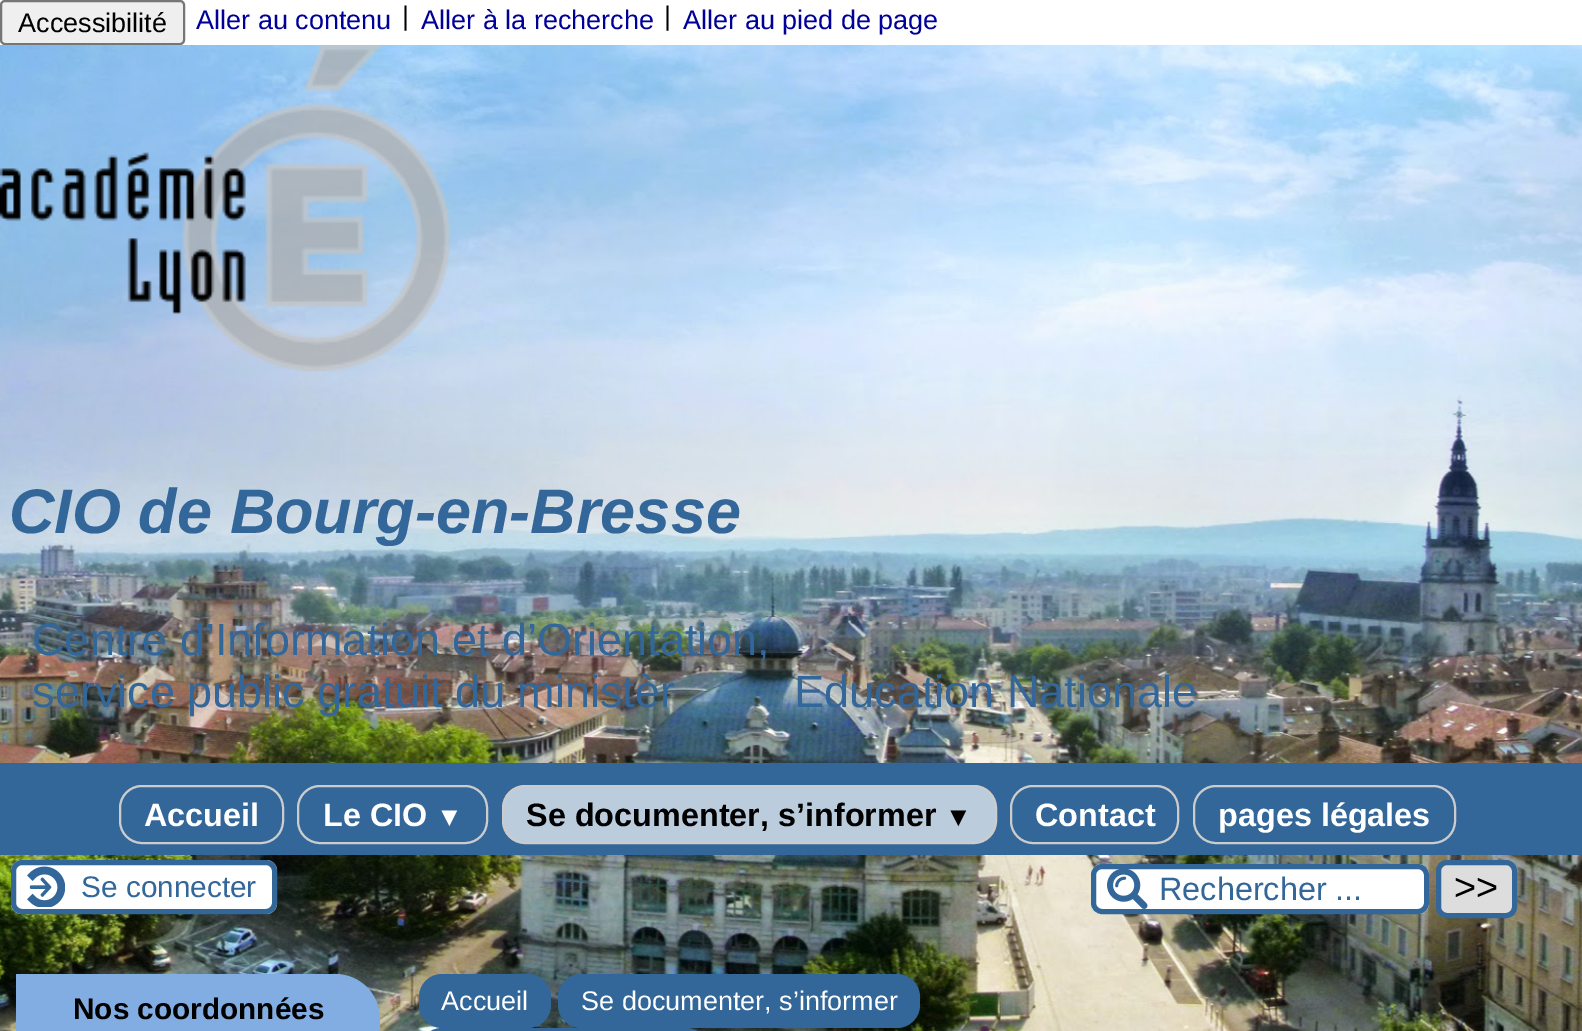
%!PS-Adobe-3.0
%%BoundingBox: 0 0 1582 1031
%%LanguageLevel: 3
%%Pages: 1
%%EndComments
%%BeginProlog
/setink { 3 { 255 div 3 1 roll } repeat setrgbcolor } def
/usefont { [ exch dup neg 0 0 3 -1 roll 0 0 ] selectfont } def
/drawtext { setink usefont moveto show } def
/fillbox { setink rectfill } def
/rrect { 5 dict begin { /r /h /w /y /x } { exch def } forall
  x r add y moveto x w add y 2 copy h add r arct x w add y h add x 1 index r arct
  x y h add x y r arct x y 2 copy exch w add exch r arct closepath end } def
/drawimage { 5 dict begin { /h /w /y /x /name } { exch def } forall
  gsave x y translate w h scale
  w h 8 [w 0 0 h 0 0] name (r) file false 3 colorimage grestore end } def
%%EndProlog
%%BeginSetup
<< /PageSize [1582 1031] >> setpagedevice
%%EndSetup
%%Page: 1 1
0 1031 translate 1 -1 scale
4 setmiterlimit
0 0 1582 1031 255 255 255 fillbox
(assets/img1.rgb) 0 45 1582 986 drawimage
239 239 239 setink
1 1 183 43 4 rrect gsave fill grestore
118 118 118 setink
2 setlinewidth
stroke
(Accessibilité) 18 32 /LiberationSans-Regular 27 0 0 0 drawtext
(Aller au contenu) 196 29 /LiberationSans-Regular 27 0 0 153 drawtext
(|) 402 25 /LiberationSans-Regular 27 0 0 0 drawtext
(Aller à la recherche) 421 29 /LiberationSans-Regular 27 0 0 153 drawtext
(|) 664 25 /LiberationSans-Regular 27 0 0 0 drawtext
(Aller au pied de page) 683 29 /LiberationSans-Regular 27 0 0 153 drawtext
(assets/img2.rgb) 0 45 450 327 drawimage
(CIO de Bourg-en-Bresse) 9 533 /LiberationSans-BoldItalic 63 51 102 153 drawtext
(Centre d’Information et d’Orientation,) 32 655 /LiberationSans-Regular 45 51 102 153 drawtext
(service public gratuit du ministèr) 32 707 /LiberationSans-Regular 45 51 102 153 drawtext
(Education Nationale) 794 707 /LiberationSans-Regular 45 51 102 153 drawtext
0 763 1582 92 51 102 153 fillbox
204 204 204 setink
120 786 163 57 22 rrect stroke
(Accueil) 144 826 /LiberationSans-Bold 32.4 255 255 255 drawtext
204 204 204 setink
298 786 189 57 22 rrect stroke
(Le CIO) 323 826 /LiberationSans-Bold 32.4 255 255 255 drawtext
(▼) 436 826 /LiberationSans-Bold 27 255 255 255 drawtext
187 204 221 setink
503 786 493 57 22 rrect gsave fill grestore
204 204 204 setink
stroke
(Se documenter, s’informer) 526 826 /LiberationSans-Bold 32.4 0 0 0 drawtext
(▼) 945 826 /LiberationSans-Bold 27 0 0 0 drawtext
204 204 204 setink
1011 786 167 57 22 rrect stroke
(Contact) 1035 826 /LiberationSans-Bold 32.4 255 255 255 drawtext
204 204 204 setink
1194 786 261 57 22 rrect stroke
(pages légales) 1218 826 /LiberationSans-Bold 32.4 255 255 255 drawtext
11 860 266 54 11 rrect fill
(assets/img3.rgb) 27 866 38 41 drawimage
51 102 153 setink
5 setlinewidth
13.5 862.5 261 49 8.5 rrect stroke
(Se connecter) 81 897 /LiberationSans-Regular 29.75 51 102 153 drawtext
255 255 255 setink
1091 864 338 50 11 rrect fill
(assets/img4.rgb) 1107 869 41 40 drawimage
51 102 153 setink
1093.5 866.5 333 45 8.5 rrect stroke
(Rechercher ...) 1159 900 /LiberationSans-Regular 32.4 51 102 153 drawtext
221 221 221 setink
1438.5 862.5 76 53 8.5 rrect gsave fill grestore
51 102 153 setink
stroke
(>>) 1454 900 /LiberationSans-Regular 38 0 0 0 drawtext
130 173 226 setink
16 974 moveto 335 974 lineto 360 974 380 994 380 1019 curveto 380 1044 lineto 16 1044 lineto closepath fill
(Nos coordonnées) 73 1019 /LiberationSans-Bold 29.75 0 0 0 drawtext
51 102 153 setink
419 974 132 54 23 rrect fill
(Accueil) 441 1010 /LiberationSans-Regular 27 255 255 255 drawtext
51 102 153 setink
558 974 362 54 23 rrect fill
(Se documenter, s’informer) 581 1010 /LiberationSans-Regular 27 255 255 255 drawtext
51 102 153 setink
419 1028 290 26 23 rrect fill
showpage
%%EOF
